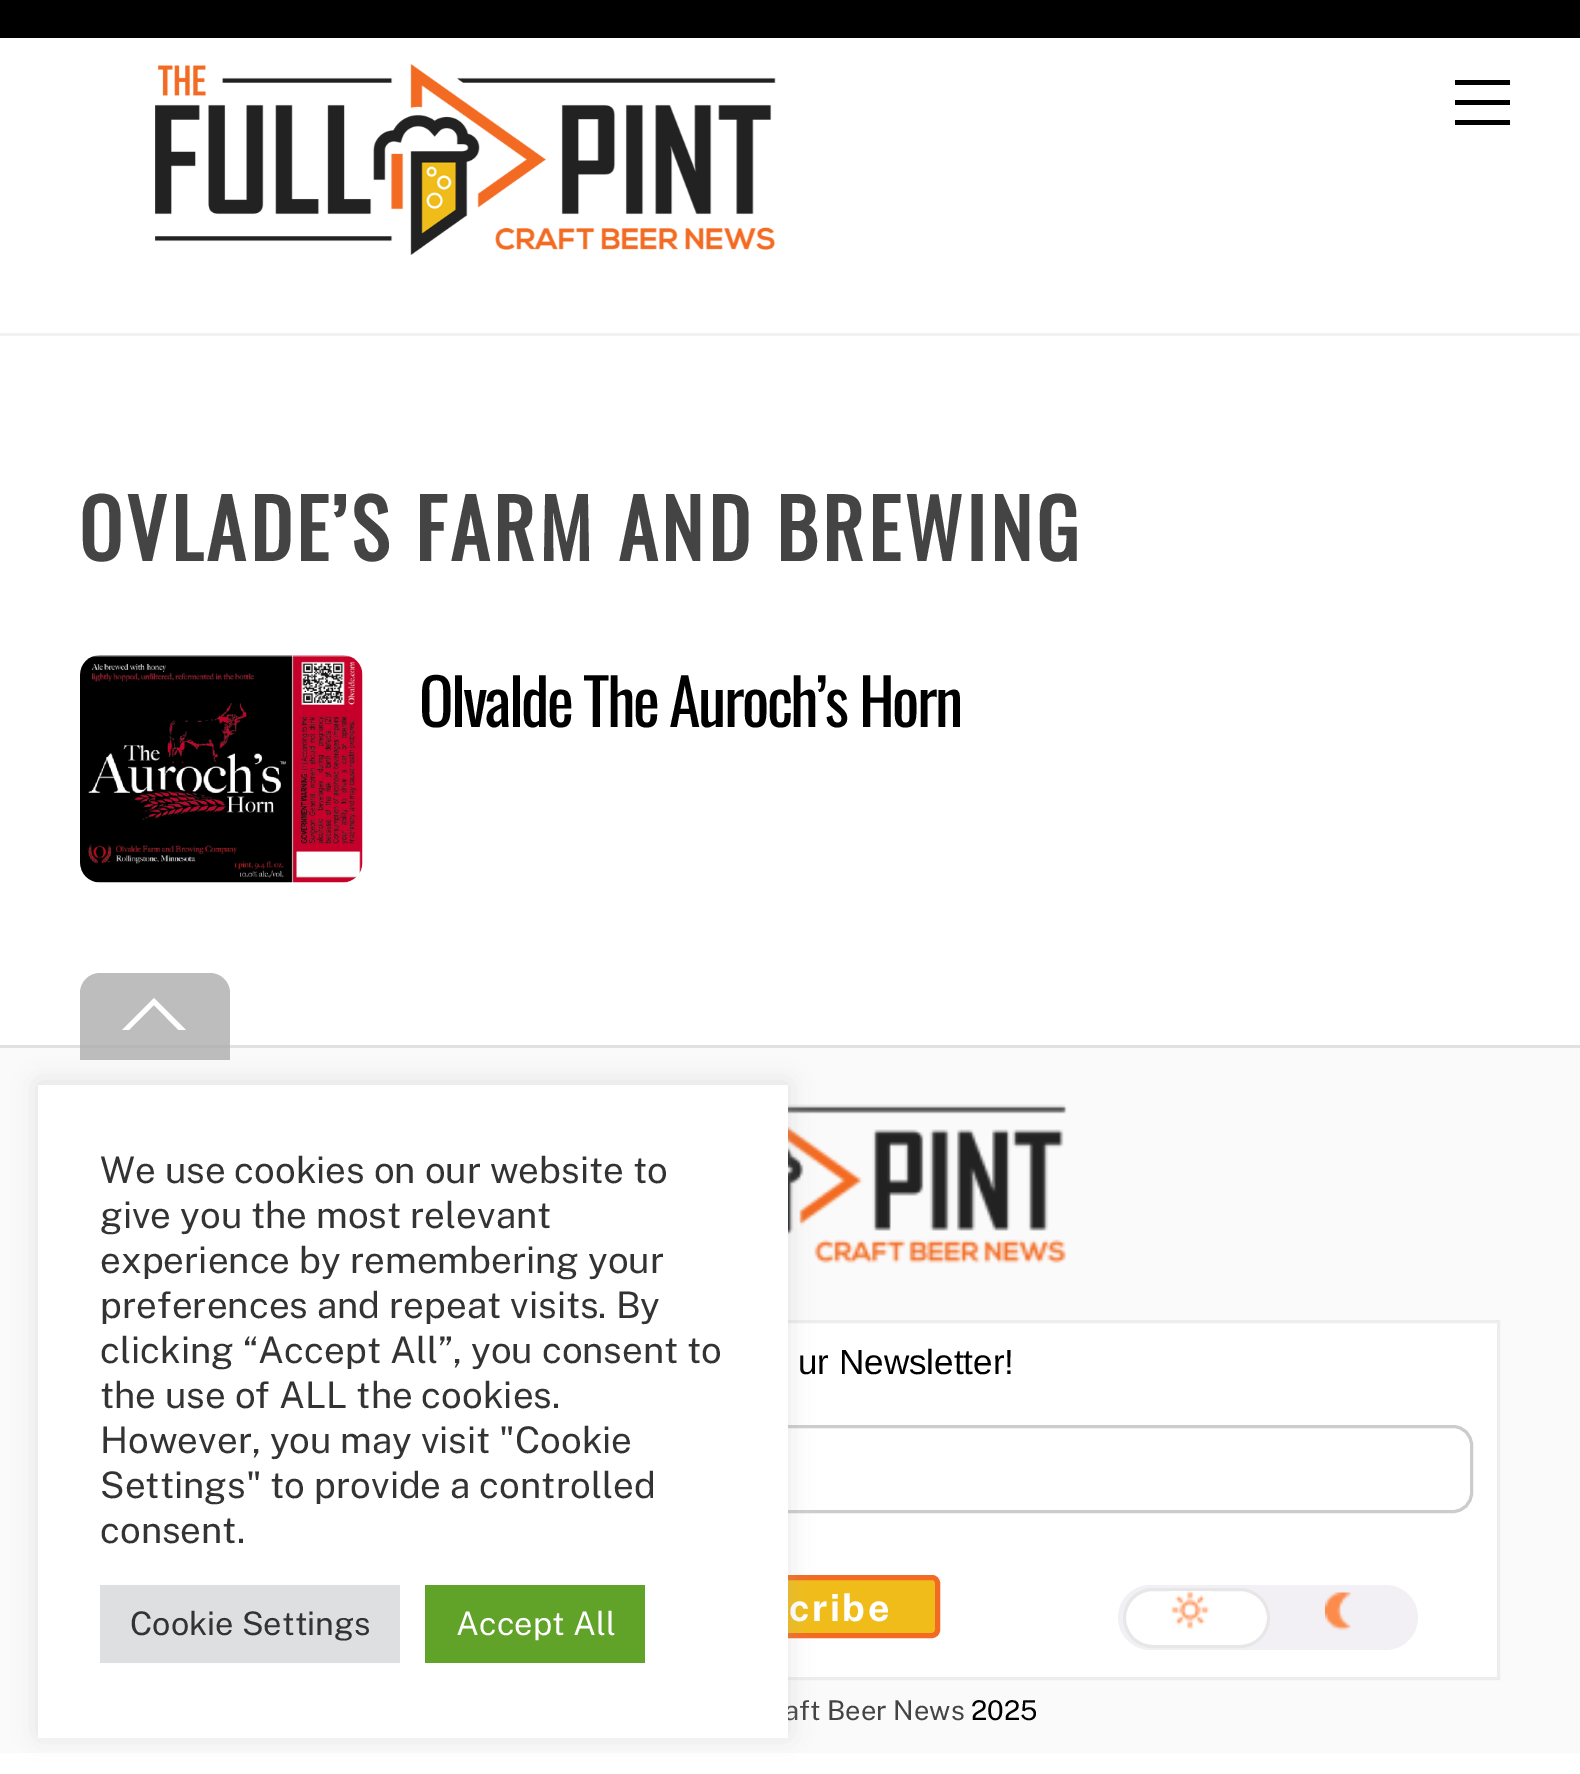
%!PS-Adobe-3.0
%%BoundingBox: 0 0 1580 1774
%%LanguageLevel: 3
%%Pages: 1
%%EndComments
%%BeginProlog
/setink { 3 { 255 div 3 1 roll } repeat setrgbcolor } def
/usefont { [ exch dup neg 0 0 3 -1 roll 0 0 ] selectfont } def
/drawtext { setink usefont moveto show } def
/fillbox { setink rectfill } def
/setalpha { dup .setfillconstantalpha .setstrokeconstantalpha } def
/rrect { 5 dict begin { /r /h /w /y /x } { exch def } forall
  x r add y moveto x w add y 2 copy h add r arct x w add y h add x 1 index r arct
  x y h add x y r arct x y 2 copy exch w add exch r arct closepath end } def
/softshadow { 12 dict begin { /a /b /q /h /w /y /x } { exch def } forall gsave /was 0 def
  9 -2 -9 { dup b mul 4 div /e exch def 1 sub .425 mul 2.718 exch exp 1 add a .99 .min exch div /now exch def
    1 1 now sub 1 was sub div sub setalpha /was now def
    w h .min e 2 mul add 0 gt { x e sub y e sub w e 2 mul add h e 2 mul add
      q e add b .6 mul add w h .min 2 div e add .min 0 .max rrect fill } if } for grestore end } def
/drawimage { 5 dict begin { /h /w /y /x /name } { exch def } forall
  gsave x y translate w h scale
  w h 8 [w 0 0 h 0 0] name (r) file false 3 colorimage grestore end } def
%%EndProlog
%%BeginSetup
<< /PageSize [1580 1774] /PageUsesTransparency true >> setpagedevice
%%EndSetup
%%Page: 1 1
0 .pushpdf14devicefilter
0 1774 translate 1 -1 scale
4 setmiterlimit
0 0 1580 1774 255 255 255 fillbox
0 0 1580 38 0 0 0 fillbox
0 333 1580 3 242 242 242 fillbox
(assets/img1.rgb) 155 64 621 191 drawimage
1455 120 55 5 0 0 0 fillbox
1455 80 55 5 0 0 0 fillbox
1455 100 55 5 0 0 0 fillbox
/Oswald-Bold 80 usefont
68 68 68 setink
79 561 moveto 4 0 (OVLADE’S FARM AND BREWING) ashow
(assets/img2.rgb) 80 655 283 228 drawimage
/Oswald-Regular 64 usefont
0 0 0 setink
419 727 moveto -2.55 0 (Olvalde The Auroch’s Horn) ashow
0 1048 1580 705 250 250 250 fillbox
0 1045 1580 3 225 225 225 fillbox
0.78 setalpha
171 171 171 setink
100 973 moveto 210 973 lineto 221 973 230 982 230 993 curveto 230 1060 lineto 80 1060 lineto 80 993 lineto 80 982 89 973 100 973 curveto closepath fill
1 setalpha
255 255 255 setink
154 998 moveto 186 1030 lineto 178.5 1030 lineto 154 1005 lineto closepath fill
122 1030 moveto 154 998 lineto 154 1005 lineto 129 1030 lineto closepath fill
(assets/img3.rgb) 788 1104 279 160 drawimage
788 1323 709 354 255 255 255 fillbox
237 237 237 setink
3 setlinewidth
81.5 1321.5 1417 357 rectstroke
(ur Newsletter!) 798 1374 /LiberationSans-Regular 35 0 0 0 drawtext
204 204 204 setink
109.5 1426.5 1362 85 18.5 rrect stroke
240 188 26 setink
642.5 1577.5 295 58 5.5 rrect gsave fill grestore
243 106 34 setink
5 setlinewidth
stroke
/PublicSans-Bold 37.5 usefont
255 255 255 setink
789 1621 moveto 2.5 0 (cribe) ashow
(aft Beer News) 784 1720 /PublicSans-Regular 27.25 68 68 68 drawtext
(2025) 971 1720 /PublicSans-Regular 27.25 0 0 0 drawtext
172 171 171 setink
38 1083 750 652 0 12.5 0.3 softshadow
38 1085 750 653 255 255 255 fillbox
(We use cookies on our website to) 100 1183 /PublicSans-Regular 36.7 51 51 51 drawtext
(give you the most relevant) 100 1228 /PublicSans-Regular 36.7 51 51 51 drawtext
(experience by remembering your) 100 1273 /PublicSans-Regular 36.7 51 51 51 drawtext
(preferences and repeat visits. By) 100 1318 /PublicSans-Regular 36.7 51 51 51 drawtext
(clicking “Accept All”, you consent to) 100 1363 /PublicSans-Regular 36.7 51 51 51 drawtext
(the use of ALL the cookies.) 100 1408 /PublicSans-Regular 36.7 51 51 51 drawtext
(However, you may visit "Cookie) 100 1453 /PublicSans-Regular 36.7 51 51 51 drawtext
(Settings" to provide a controlled) 100 1498 /PublicSans-Regular 36.7 51 51 51 drawtext
(consent.) 100 1543 /PublicSans-Regular 36.7 51 51 51 drawtext
100 1585 300 78 222 223 224 fillbox
(Cookie Settings) 130 1635 /PublicSans-Regular 32.5 51 51 51 drawtext
425 1585 220 78 97 162 41 fillbox
(Accept All) 456 1635 /PublicSans-Regular 32.5 255 255 255 drawtext
242 240 244 setink
1118 1585 300 65 32.5 rrect fill
255 255 255 setink
1124.5 1589.5 144 57 28.5 rrect gsave fill grestore
231 231 231 setink
3 setlinewidth
stroke
(assets/img4.rgb) 1170 1590 40 40 drawimage
(assets/img5.rgb) 1325 1592 26 39 drawimage
.poppdf14devicefilter showpage
%%EOF
